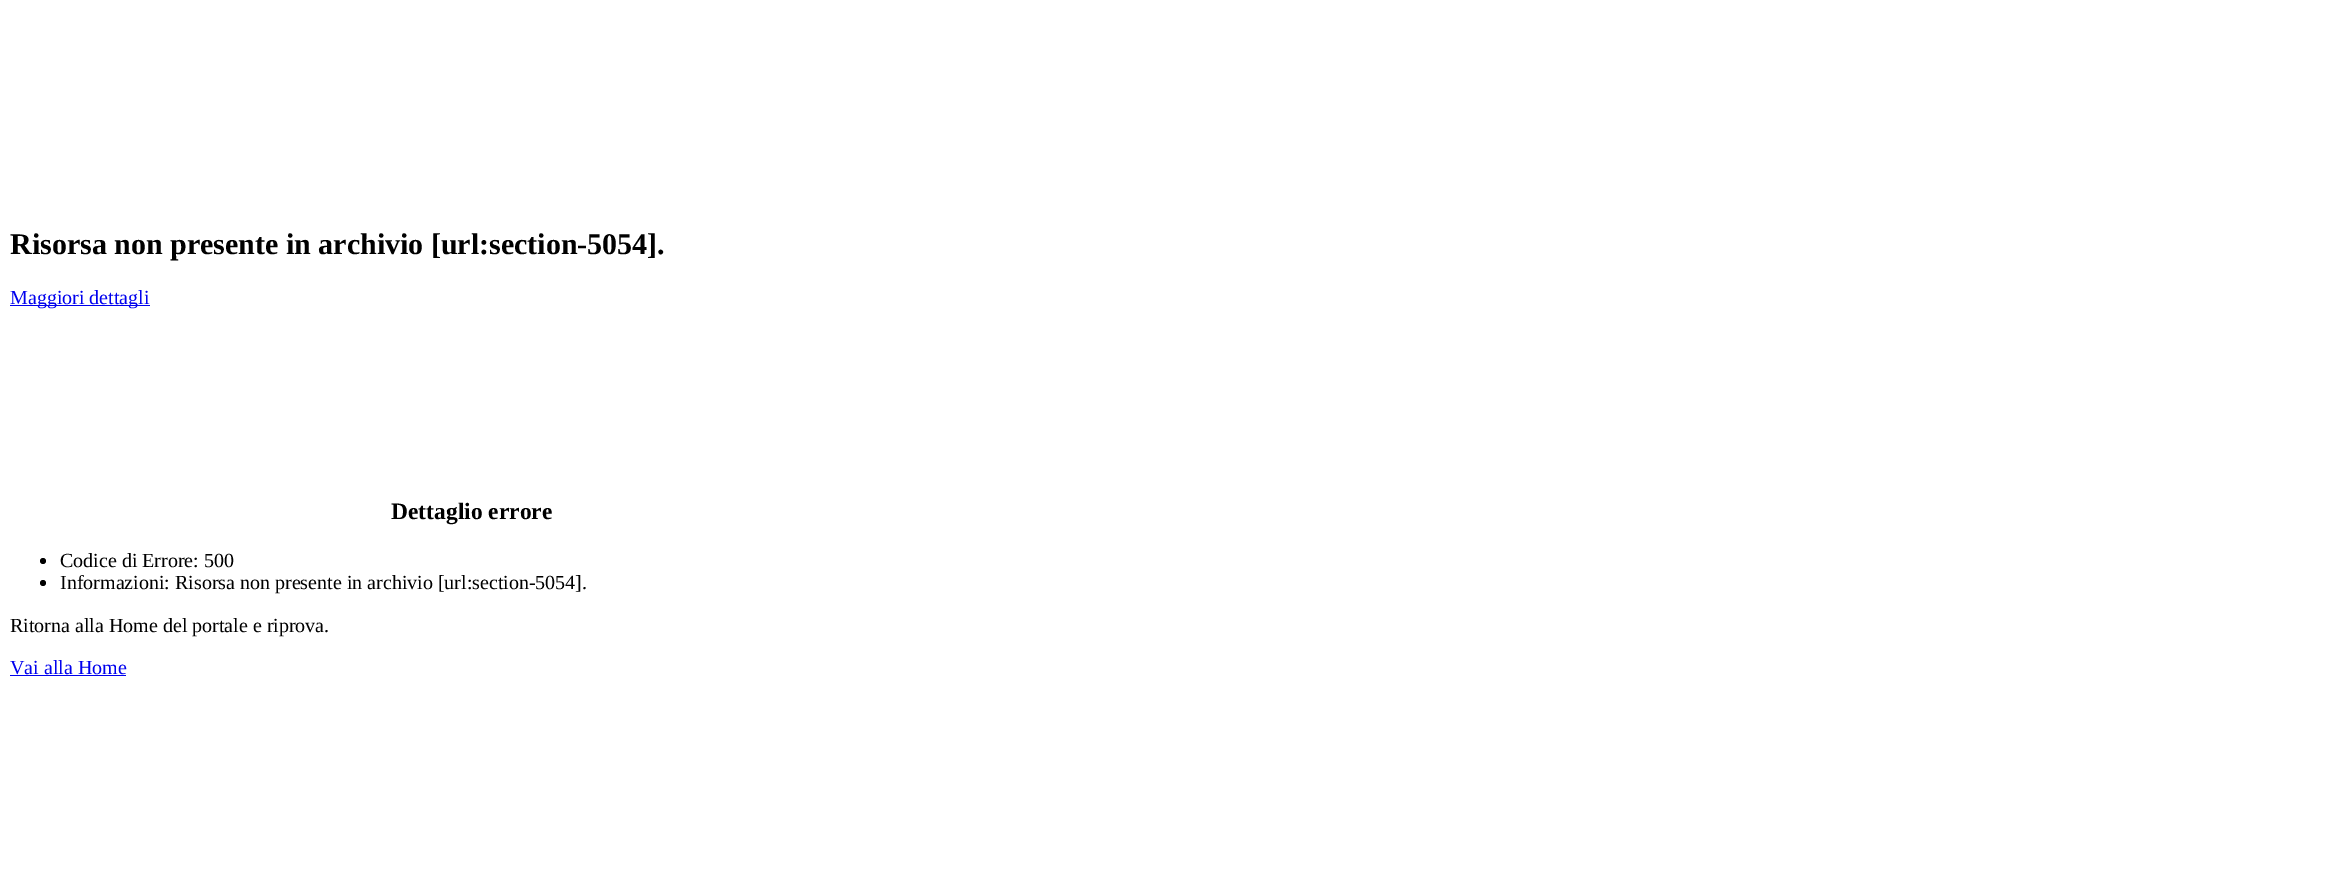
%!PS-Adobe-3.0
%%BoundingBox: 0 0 2338 888
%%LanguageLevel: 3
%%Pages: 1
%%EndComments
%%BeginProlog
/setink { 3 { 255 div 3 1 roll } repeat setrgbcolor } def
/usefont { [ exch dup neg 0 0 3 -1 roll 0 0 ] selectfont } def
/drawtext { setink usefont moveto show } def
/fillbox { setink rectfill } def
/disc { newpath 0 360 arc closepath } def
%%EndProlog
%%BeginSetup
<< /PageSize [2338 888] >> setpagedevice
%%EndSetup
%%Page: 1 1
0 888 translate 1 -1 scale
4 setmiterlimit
0 0 2338 888 255 255 255 fillbox
(Risorsa non presente in archivio [url:section-5054].) 10 254 /LiberationSerif-Bold 30 0 0 0 drawtext
10 305 140 1 0 0 238 fillbox
(Maggiori dettagli) 10 304 /LiberationSerif-Regular 20 0 0 238 drawtext
(Dettaglio errore) 391 519 /LiberationSerif-Bold 23.5 0 0 0 drawtext
43 561 3 disc fill
(Codice di Errore: 500) 60 567 /LiberationSerif-Regular 20 0 0 0 drawtext
43 583 3 disc fill
(Informazioni: Risorsa non presente in archivio [url:section-5054].) 60 589 /LiberationSerif-Regular 20 0 0 0 drawtext
(Ritorna alla Home del portale e riprova.) 10 632 /LiberationSerif-Regular 20 0 0 0 drawtext
(Vai alla Home) 10 674 /LiberationSerif-Regular 20 0 0 238 drawtext
10 675 116 1 0 0 238 fillbox
showpage
%%EOF
